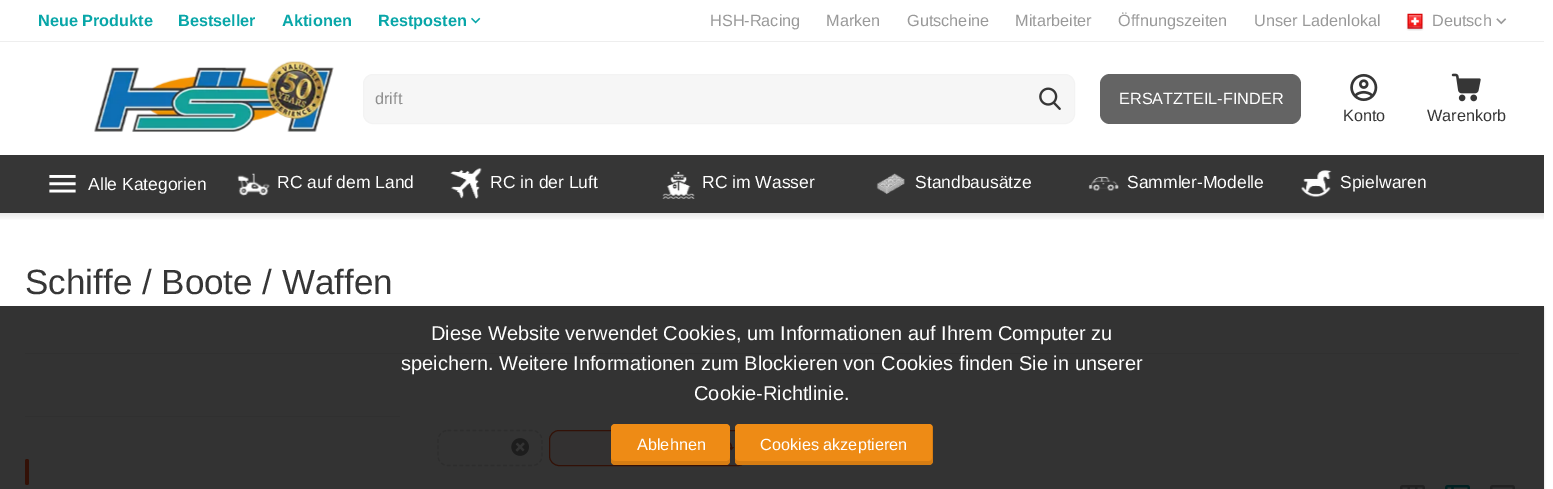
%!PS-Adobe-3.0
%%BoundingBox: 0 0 1553 489
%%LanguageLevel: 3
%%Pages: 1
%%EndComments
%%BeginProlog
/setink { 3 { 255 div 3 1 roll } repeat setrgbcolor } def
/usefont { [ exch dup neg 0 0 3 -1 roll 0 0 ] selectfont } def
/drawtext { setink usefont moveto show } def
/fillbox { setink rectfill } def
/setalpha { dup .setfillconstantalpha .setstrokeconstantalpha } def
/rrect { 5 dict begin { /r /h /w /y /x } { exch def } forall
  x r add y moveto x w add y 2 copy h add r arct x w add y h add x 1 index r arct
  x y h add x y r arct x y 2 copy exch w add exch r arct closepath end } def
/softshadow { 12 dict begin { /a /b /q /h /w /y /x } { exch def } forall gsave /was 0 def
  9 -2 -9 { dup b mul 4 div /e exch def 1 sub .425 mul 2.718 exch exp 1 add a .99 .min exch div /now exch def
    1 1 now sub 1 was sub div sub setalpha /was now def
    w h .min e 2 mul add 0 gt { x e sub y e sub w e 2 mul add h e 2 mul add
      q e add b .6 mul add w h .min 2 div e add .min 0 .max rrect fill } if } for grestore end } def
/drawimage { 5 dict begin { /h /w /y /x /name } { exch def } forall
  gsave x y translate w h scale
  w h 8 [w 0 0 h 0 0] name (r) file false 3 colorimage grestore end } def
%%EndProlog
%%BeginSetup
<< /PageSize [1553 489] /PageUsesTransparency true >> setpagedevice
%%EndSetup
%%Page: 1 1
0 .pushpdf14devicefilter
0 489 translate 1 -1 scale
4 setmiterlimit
0 0 1553 489 255 255 255 fillbox
0 41 1544 1 238 238 238 fillbox
(Neue Produkte) 38 26 /LiberationSans-Bold 16.25 8 166 168 drawtext
(Bestseller) 178 26 /LiberationSans-Bold 16.25 8 166 168 drawtext
(Aktionen) 282 26 /LiberationSans-Bold 16.25 8 166 168 drawtext
(Restposten) 378 26 /LiberationSans-Bold 16.25 8 166 168 drawtext
(assets/img1.rgb) 471 17 10 7 drawimage
(HSH-Racing) 710 26 /LiberationSans-Regular 16.25 153 153 153 drawtext
(Marken) 826 26 /LiberationSans-Regular 16.25 153 153 153 drawtext
(Gutscheine) 907 26 /LiberationSans-Regular 16.25 153 153 153 drawtext
(Mitarbeiter) 1015 26 /LiberationSans-Regular 16.25 153 153 153 drawtext
(Öffnungszeiten) 1118 26 /LiberationSans-Regular 16.25 153 153 153 drawtext
(Unser Ladenlokal) 1254 26 /LiberationSans-Regular 16.25 153 153 153 drawtext
(assets/img2.rgb) 1406 13 18 18 drawimage
(Deutsch) 1432 26 /LiberationSans-Regular 16.25 153 153 153 drawtext
(assets/img3.rgb) 1496 18 11 7 drawimage
(assets/img4.rgb) 94 61 240 71 drawimage
246 246 246 setink
363.5 74.5 711 49 9.5 rrect gsave fill grestore
243 243 243 setink
stroke
(drift) 375 104 /LiberationSans-Regular 16.25 143 143 143 drawtext
(assets/img5.rgb) 1039 87 22 23 drawimage
100 100 100 setink
1100 74 201 50 10 rrect fill
(ERSATZTEIL-FINDER) 1119 104 /LiberationSans-Regular 16.25 255 255 255 drawtext
(assets/img6.rgb) 1350 73 28 29 drawimage
(Konto) 1343 121 /LiberationSans-Regular 16.25 54 54 54 drawtext
(assets/img7.rgb) 1451 73 30 29 drawimage
(Warenkorb) 1427 121 /LiberationSans-Regular 16.25 54 54 54 drawtext
0 155 1544 58 54 54 54 fillbox
(assets/img8.rgb) 49 175 27 18 drawimage
(Alle Kategorien) 88 190 /LiberationSans-Regular 17.5 255 255 255 drawtext
(assets/img9.rgb) 237 173 33 23 drawimage
(RC auf dem Land) 277 188 /LiberationSans-Regular 17.5 255 255 255 drawtext
(assets/img10.rgb) 450 168 32 31 drawimage
(RC in der Luft) 490 188 /LiberationSans-Regular 17.5 255 255 255 drawtext
(assets/img11.rgb) 662 171 33 28 drawimage
(RC im Wasser) 702 188 /LiberationSans-Regular 17.5 255 255 255 drawtext
(assets/img12.rgb) 876 173 29 21 drawimage
(Standbausätze) 915 188 /LiberationSans-Regular 17.5 255 255 255 drawtext
(assets/img13.rgb) 1088 176 31 15 drawimage
(Sammler-Modelle) 1127 188 /LiberationSans-Regular 17.5 255 255 255 drawtext
(assets/img14.rgb) 1301 170 31 27 drawimage
(Spielwaren) 1340 188 /LiberationSans-Regular 17.5 255 255 255 drawtext
gsave 0 213 moveto 1544 213 lineto 1544 220 lineto 0 220 lineto closepath clip newpath
<< /ShadingType 2 /ColorSpace /DeviceRGB /Coords [772 212 772 221] /Extend [true true] /Function << /FunctionType 2 /Domain [0 1] /C0 [0.902 0.902 0.902] /C1 [1 1 1] /N 1 >> >> shfill grestore
(Schiffe / Boote / Waffen) 25 294 /LiberationSans-Regular 35 54 54 54 drawtext
25 353 1494 1 238 238 238 fillbox
25 416 375 1 238 238 238 fillbox
255 87 34 setink
25 459 4 26 2 rrect fill
225 225 225 setink
1.2 setlinewidth
[3.75 2.5] 0 setdash
447.5 430.5 moveto 532.5 430.5 lineto 537.5 430.5 542 435 542 440 curveto 542 456 lineto 542 461.5 537.5 465.5 532.5 465.5 curveto 447.5 465.5 lineto 442.5 465.5 438 461.5 438 456 curveto 438 440 lineto 438 435 442.5 430.5 447.5 430.5 curveto closepath stroke
(assets/img15.rgb) 511 438 18 18 drawimage
255 247 244 setink
549.5 430.5 198 35 9.5 rrect gsave fill grestore
255 87 34 setink
1 setlinewidth
[] 0 setdash
stroke
(assets/img16.rgb) 730 442 5 9 drawimage
(assets/img17.rgb) 1400 485 25 4 drawimage
(assets/img18.rgb) 1445 485 25 4 drawimage
(assets/img19.rgb) 1490 485 25 4 drawimage
gsave
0 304 moveto 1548 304 lineto 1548 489 lineto 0 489 lineto closepath 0 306 moveto 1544 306 lineto 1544 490 lineto 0 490 lineto closepath eoclip newpath
0 0 0 setink
0 308 1544 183 0 1 0.2 softshadow
grestore
0.8 setalpha
0 306 1544 183 0 0 0 fillbox
1 setalpha
(Diese Website verwendet Cookies, um Informationen auf Ihrem Computer zu) 431 340 /LiberationSans-Regular 20 255 255 255 drawtext
(speichern. Weitere Informationen zum Blockieren von Cookies finden Sie in unserer) 401 370 /LiberationSans-Regular 20 255 255 255 drawtext
(Cookie-Richtlinie.) 694 400 /LiberationSans-Regular 20 255 255 255 drawtext
238 139 21 setink
611 424 119 41 4 rrect fill
0.1 setalpha
0 0 0 setink
611 458 moveto 611 461 lineto 611 463 613 465 615 465 curveto 726 465 lineto 728 465 730 463 730 461 curveto 730 458 lineto 729 460 lineto 727 461 lineto 615 461 lineto 613 461 611 460 611 458 curveto closepath fill
1 setalpha
(Ablehnen) 637 450 /LiberationSans-Regular 16.25 255 255 255 drawtext
238 139 21 setink
735 424 198 41 4 rrect fill
0.1 setalpha
0 0 0 setink
735 458 moveto 735 461 lineto 735 463 737 465 739 465 curveto 929 465 lineto 931 465 933 463 933 461 curveto 933 428 lineto 933 427 933 426 932 425 curveto 932 458 lineto 932 460 931 461 929 461 curveto 739 461 lineto 737 461 735 460 735 458 curveto closepath fill
1 setalpha
(Cookies akzeptieren) 760 450 /LiberationSans-Regular 16.25 255 255 255 drawtext
.poppdf14devicefilter showpage
%%EOF
